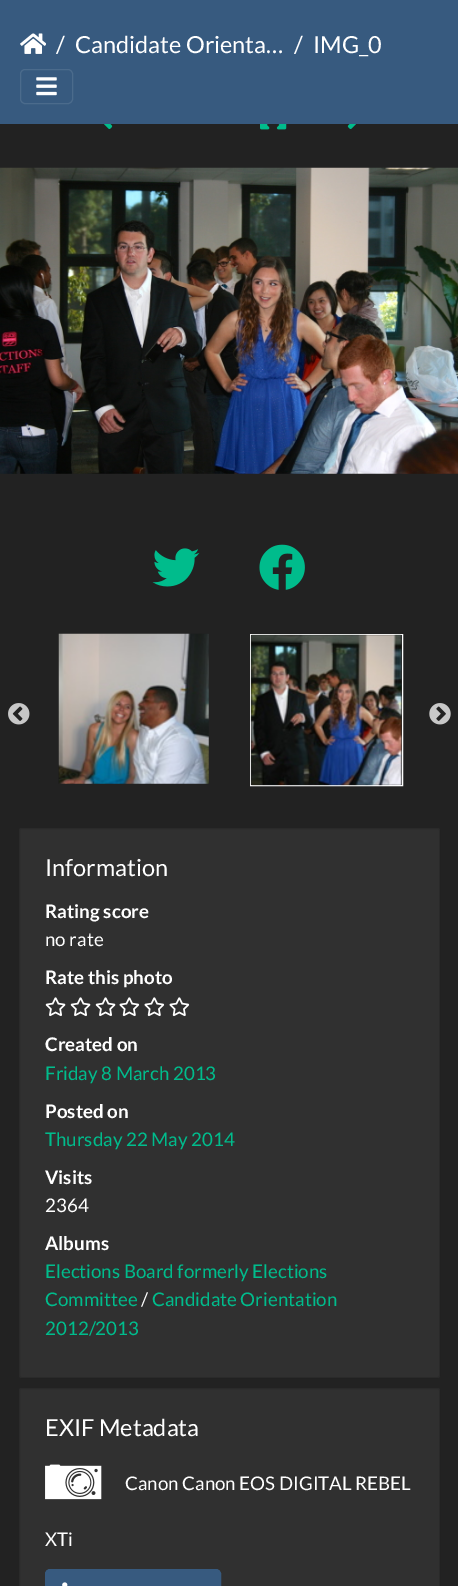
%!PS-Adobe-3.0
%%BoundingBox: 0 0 458 1586
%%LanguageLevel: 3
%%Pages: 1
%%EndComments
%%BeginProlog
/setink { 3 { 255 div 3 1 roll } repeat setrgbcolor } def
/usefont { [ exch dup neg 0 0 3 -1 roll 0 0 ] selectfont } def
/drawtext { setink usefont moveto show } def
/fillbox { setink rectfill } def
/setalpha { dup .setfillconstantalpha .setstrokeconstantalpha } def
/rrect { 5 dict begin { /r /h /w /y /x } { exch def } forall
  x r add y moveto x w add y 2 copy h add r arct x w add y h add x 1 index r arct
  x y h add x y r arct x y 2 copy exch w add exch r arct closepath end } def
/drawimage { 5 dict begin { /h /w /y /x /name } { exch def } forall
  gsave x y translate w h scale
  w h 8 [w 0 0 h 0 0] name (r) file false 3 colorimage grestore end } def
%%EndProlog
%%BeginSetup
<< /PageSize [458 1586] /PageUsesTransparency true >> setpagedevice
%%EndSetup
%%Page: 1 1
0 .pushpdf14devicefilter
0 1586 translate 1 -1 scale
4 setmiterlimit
0 0 458 1586 34 34 34 fillbox
0 0 458 124 55 90 127 fillbox
(assets/img1.rgb) 20 33 26 21 drawimage
(/) 56 53 /Lato-Regular 23.5 255 255 255 drawtext
(Candidate Orienta…) 75 53 /Lato-Regular 23.5 255 255 255 drawtext
(/) 294 53 /Lato-Regular 23.5 255 255 255 drawtext
(IMG_0) 313 53 /Lato-Regular 23.5 255 255 255 drawtext
75 107 140 setink
20.5 69.5 52 34 4.5 rrect stroke
(assets/img2.rgb) 36 77 21 19 drawimage
(assets/img3.rgb) 104 124 9 5 drawimage
(assets/img4.rgb) 260 124 27 6 drawimage
(assets/img5.rgb) 347 124 9 5 drawimage
(assets/img6.rgb) 0 167 458 307 drawimage
(assets/img7.rgb) 152 548 48 39 drawimage
(assets/img8.rgb) 259 544 46 46 drawimage
(assets/img9.rgb) 8 703 22 22 drawimage
(assets/img10.rgb) 58 633 151 151 drawimage
255 255 255 setink
250.5 634.5 152 151 rectstroke
(assets/img11.rgb) 250 634 152 152 drawimage
(assets/img12.rgb) 429 703 22 22 drawimage
48 48 48 setink
19 828 421 550 2.5 rrect fill
0.12 setalpha
0 0 0 setink
19.5 828.5 420 549 2 rrect stroke
1 setalpha
(Information) 45 876 /Lato-Regular 23.5 255 255 255 drawtext
(Rating score) 45 918 /Lato-Bold 18.75 255 255 255 drawtext
(no rate) 45 946 /Lato-Regular 18.75 255 255 255 drawtext
(Rate this photo) 45 984 /Lato-Bold 18.75 255 255 255 drawtext
(assets/img13.rgb) 45 997 21 20 drawimage
(assets/img13.rgb) 70 997 21 20 drawimage
(assets/img13.rgb) 95 997 21 20 drawimage
(assets/img14.rgb) 119 997 21 20 drawimage
(assets/img14.rgb) 144 997 21 20 drawimage
(assets/img14.rgb) 169 997 21 20 drawimage
(Created on) 45 1051 /Lato-Bold 18.75 255 255 255 drawtext
(Friday 8 March 2013) 45 1080 /Lato-Regular 18.75 0 188 140 drawtext
(Posted on) 45 1118 /Lato-Bold 18.75 255 255 255 drawtext
(Thursday 22 May 2014) 45 1146 /Lato-Regular 18.75 0 188 140 drawtext
(Visits) 45 1184 /Lato-Bold 18.75 255 255 255 drawtext
(2364) 45 1212 /Lato-Regular 18.75 255 255 255 drawtext
(Albums) 45 1250 /Lato-Bold 18.75 255 255 255 drawtext
(Elections Board formerly Elections) 45 1278 /Lato-Regular 18.75 0 188 140 drawtext
(Committee) 45 1306 /Lato-Regular 18.75 0 188 140 drawtext
(/) 141 1306 /Lato-Regular 18.75 255 255 255 drawtext
(Candidate Orientation) 152 1306 /Lato-Regular 18.75 0 188 140 drawtext
(2012/2013) 45 1335 /Lato-Regular 18.75 0 188 140 drawtext
48 48 48 setink
19 1388 421 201 2.5 rrect fill
0.12 setalpha
0 0 0 setink
19.5 1388.5 420 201 2 rrect stroke
1 setalpha
(EXIF Metadata) 45 1436 /Lato-Regular 23.5 255 255 255 drawtext
(assets/img15.rgb) 45 1464 57 36 drawimage
(Canon Canon EOS DIGITAL REBEL) 125 1490 /Lato-Regular 18.75 255 255 255 drawtext
(XTi) 45 1546 /Lato-Regular 18.75 255 255 255 drawtext
55 90 127 setink
45.5 1569.5 175 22 4.5 rrect gsave fill grestore
stroke
(assets/img16.rgb) 62 1582 6 4 drawimage
.poppdf14devicefilter showpage
%%EOF
